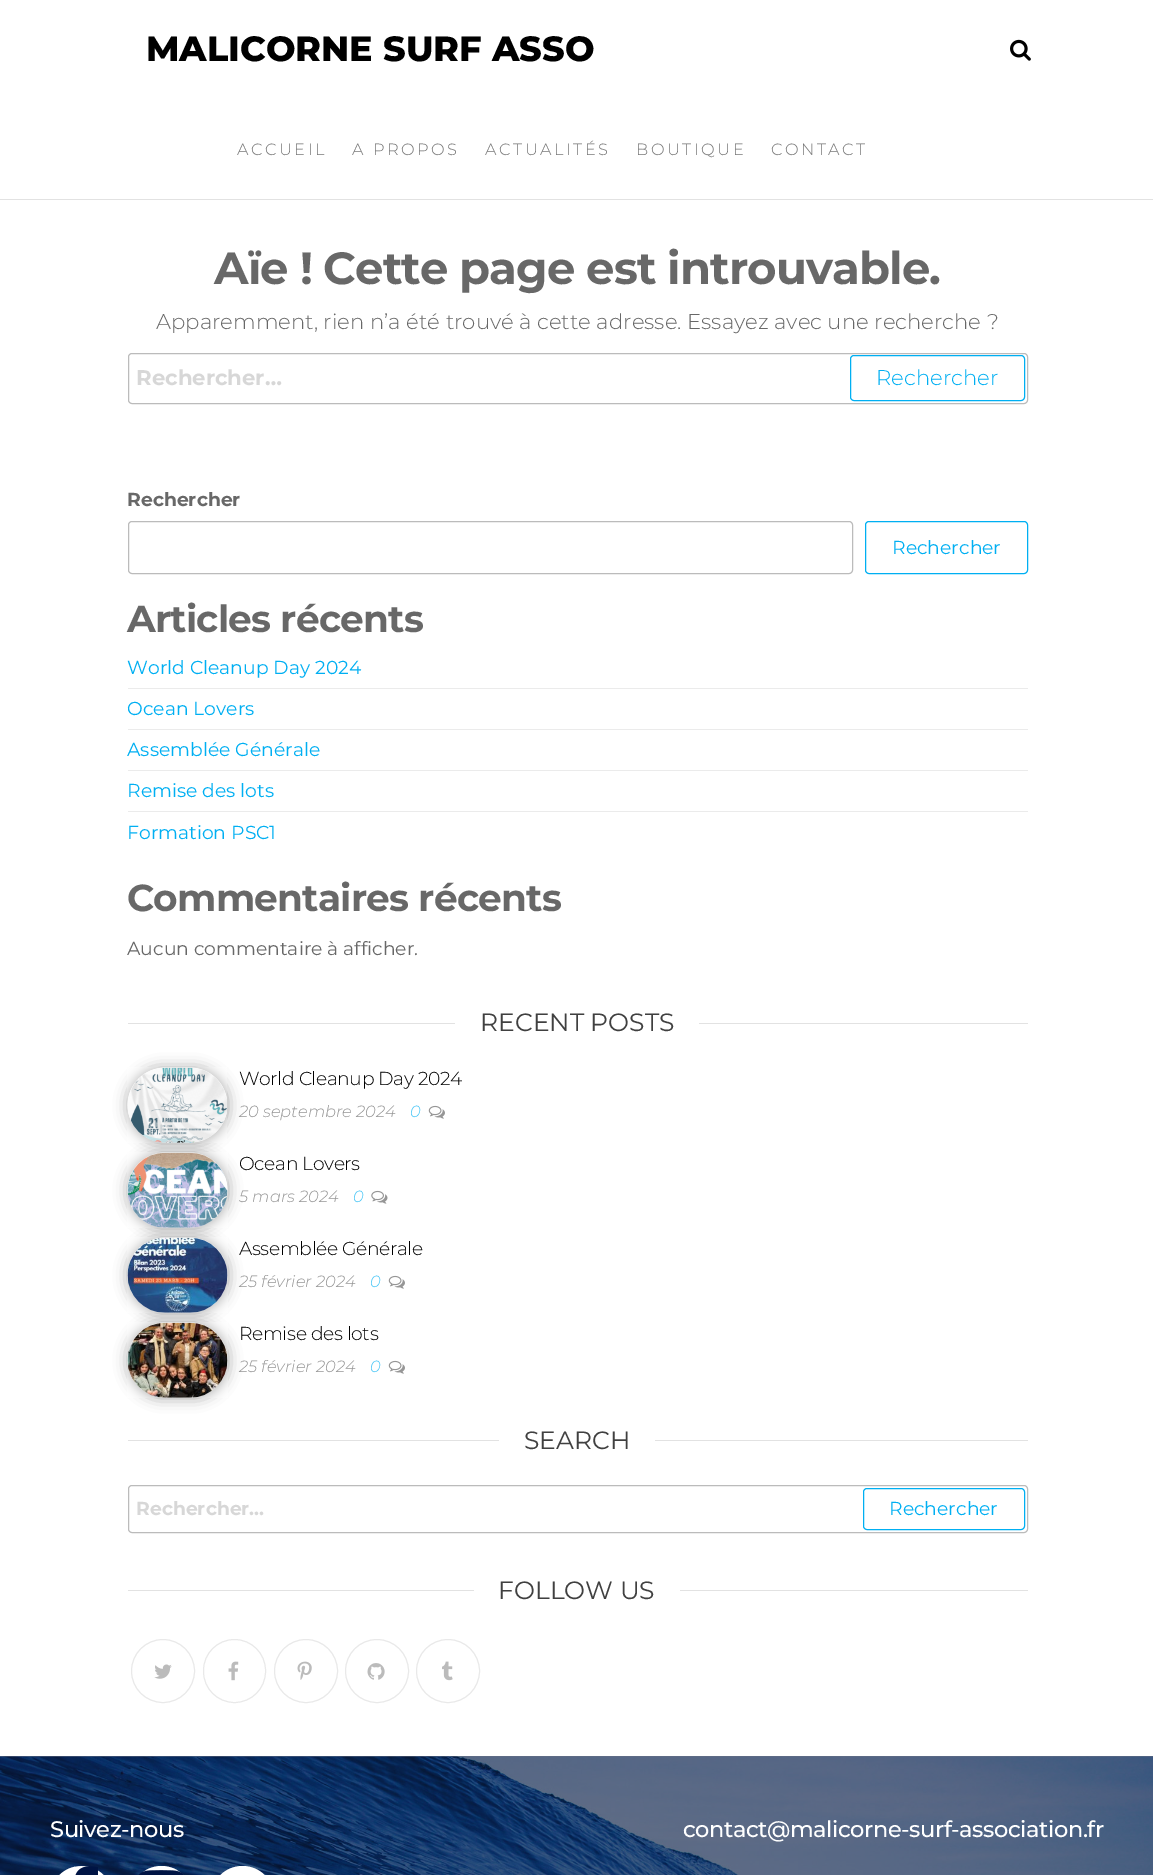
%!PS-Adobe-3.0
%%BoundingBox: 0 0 1153 1875
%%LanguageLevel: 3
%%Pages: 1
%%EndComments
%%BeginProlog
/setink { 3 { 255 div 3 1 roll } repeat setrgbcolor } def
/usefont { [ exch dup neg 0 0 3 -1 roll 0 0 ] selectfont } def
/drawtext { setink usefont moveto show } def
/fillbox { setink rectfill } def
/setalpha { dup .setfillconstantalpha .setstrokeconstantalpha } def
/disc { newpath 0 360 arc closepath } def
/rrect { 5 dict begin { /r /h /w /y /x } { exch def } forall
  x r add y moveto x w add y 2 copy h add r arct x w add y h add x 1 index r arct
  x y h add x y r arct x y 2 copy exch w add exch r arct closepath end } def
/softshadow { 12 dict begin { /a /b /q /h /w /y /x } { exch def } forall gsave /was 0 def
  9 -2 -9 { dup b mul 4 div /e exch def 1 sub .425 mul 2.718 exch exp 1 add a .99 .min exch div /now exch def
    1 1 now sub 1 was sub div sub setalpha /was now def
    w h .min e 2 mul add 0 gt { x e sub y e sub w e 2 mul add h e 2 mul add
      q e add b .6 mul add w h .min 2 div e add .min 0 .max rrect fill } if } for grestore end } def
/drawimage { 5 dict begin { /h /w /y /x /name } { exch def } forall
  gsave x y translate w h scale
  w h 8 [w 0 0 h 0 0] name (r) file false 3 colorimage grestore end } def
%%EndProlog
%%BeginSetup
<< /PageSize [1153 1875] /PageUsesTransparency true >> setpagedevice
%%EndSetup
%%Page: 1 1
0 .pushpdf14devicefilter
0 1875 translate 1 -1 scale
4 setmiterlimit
0 0 1153 1875 255 255 255 fillbox
0 1756 1153 1 102 112 134 fillbox
0 199 1153 1 226 226 226 fillbox
(MALICORNE SURF ASSO) 146 61 /Montserrat-ExtraBold 35 0 0 0 drawtext
(assets/img1.rgb) 1010 39 21 22 drawimage
/Montserrat-Light 16.25 usefont
119 119 119 setink
237 155 moveto 2.5 0 (ACCUEIL) ashow
352 155 moveto 2.5 0 (A PROPOS) ashow
485 155 moveto 2.5 0 (ACTUALITÉS) ashow
636 155 moveto 2.5 0 (BOUTIQUE) ashow
771 155 moveto 2.5 0 (CONTACT) ashow
/Montserrat-Bold 45 usefont
104 104 104 setink
214 284 moveto -0.9 0 (Aïe ! Cette page est introuvable.) ashow
(Apparemment, rien n’a été trouvé à cette adresse. Essayez avec une recherche ?) 156 329 /Montserrat-Light 21.25 104 104 104 drawtext
187 187 187 setink
128.5 353.5 899 50 3.5 rrect stroke
(Rechercher…) 136 385 /Montserrat-Bold 21.25 215 215 215 drawtext
0 175 242 setink
850.5 355.5 174 45 3.5 rrect stroke
(Rechercher) 876 385 /Montserrat-Light 21.25 0 175 242 drawtext
(Rechercher) 127 506 /Montserrat-Bold 18.75 104 104 104 drawtext
187 187 187 setink
128.5 521.5 724 52 3.5 rrect stroke
0 175 242 setink
865.5 521.5 162 52 3.5 rrect stroke
(Rechercher) 892 554 /Montserrat-Regular 18.75 0 175 242 drawtext
/Montserrat-Bold 37.5 usefont
104 104 104 setink
127 632 moveto -0.75 0 (Articles récents) ashow
128 688 900 1 235 235 235 fillbox
(World Cleanup Day 2024) 127 674 /Montserrat-Regular 18.75 0 175 242 drawtext
128 729 900 1 235 235 235 fillbox
(Ocean Lovers) 127 715 /Montserrat-Regular 18.75 0 175 242 drawtext
128 770 900 1 235 235 235 fillbox
(Assemblée Générale) 127 756 /Montserrat-Regular 18.75 0 175 242 drawtext
128 811 900 1 235 235 235 fillbox
(Remise des lots) 127 797 /Montserrat-Regular 18.75 0 175 242 drawtext
(Formation PSC1) 127 839 /Montserrat-Regular 18.75 0 175 242 drawtext
/Montserrat-Bold 37.5 usefont
104 104 104 setink
127 911 moveto -0.75 0 (Commentaires récents) ashow
(Aucun commentaire à afficher.) 127 955 /Montserrat-Regular 18.75 104 104 104 drawtext
128 1023 900 1 226 226 226 fillbox
455 1023 244 1 255 255 255 fillbox
(RECENT POSTS) 480 1031 /Montserrat-Regular 25 64 64 64 drawtext
0 0 0 setink
128 1068 100 75 37.5 7 0.35 softshadow
(assets/img2.rgb) 127 1067 100 76 drawimage
/Montserrat-Light 18.75 usefont
239 1085 moveto -0.4 0 (World Cleanup Day 2024) ashow
(20 septembre 2024) 239 1117 /Montserrat-LightItalic 16.25 149 149 149 drawtext
(0) 410 1117 /Montserrat-LightItalic 16.25 77 199 246 drawtext
(assets/img3.rgb) 428 1105 17 14 drawimage
0 0 0 setink
128 1153 100 75 37.5 7 0.35 softshadow
(assets/img4.rgb) 127 1152 101 76 drawimage
/Montserrat-Light 18.75 usefont
239 1170 moveto -0.4 0 (Ocean Lovers) ashow
(5 mars 2024) 239 1202 /Montserrat-LightItalic 16.25 149 149 149 drawtext
(0) 353 1202 /Montserrat-LightItalic 16.25 77 199 246 drawtext
(assets/img5.rgb) 371 1190 17 14 drawimage
0 0 0 setink
128 1238 100 75 37.5 7 0.35 softshadow
(assets/img6.rgb) 127 1237 101 76 drawimage
/Montserrat-Light 18.75 usefont
239 1255 moveto -0.4 0 (Assemblée Générale) ashow
(25 février 2024) 239 1287 /Montserrat-LightItalic 16.25 149 149 149 drawtext
(0) 370 1287 /Montserrat-LightItalic 16.25 77 199 246 drawtext
(assets/img3.rgb) 388 1275 17 14 drawimage
0 0 0 setink
128 1323 100 75 37.5 7 0.35 softshadow
(assets/img7.rgb) 127 1322 101 76 drawimage
/Montserrat-Light 18.75 usefont
239 1340 moveto -0.4 0 (Remise des lots) ashow
(25 février 2024) 239 1372 /Montserrat-LightItalic 16.25 149 149 149 drawtext
(0) 370 1372 /Montserrat-LightItalic 16.25 77 199 246 drawtext
(assets/img3.rgb) 388 1360 17 14 drawimage
128 1440 900 1 226 226 226 fillbox
499 1440 156 1 255 255 255 fillbox
(SEARCH) 524 1449 /Montserrat-Regular 25 64 64 64 drawtext
187 187 187 setink
128.5 1485.5 899 47 3.5 rrect stroke
(Rechercher…) 136 1515 /Montserrat-Bold 18.75 215 215 215 drawtext
0 175 242 setink
863.5 1488.5 161 41 3.5 rrect stroke
(Rechercher) 889 1515 /Montserrat-Regular 18.75 0 175 242 drawtext
128 1590 900 1 226 226 226 fillbox
474 1590 206 1 255 255 255 fillbox
(FOLLOW US) 498 1599 /Montserrat-Regular 25 64 64 64 drawtext
233 233 233 setink
163 1671 31.5 disc stroke
(assets/img8.rgb) 154 1664 18 15 drawimage
203.5 1639.5 62 63 31 rrect stroke
(assets/img9.rgb) 228 1661 11 20 drawimage
306 1671 31.5 disc stroke
(assets/img10.rgb) 297 1661 15 19 drawimage
377 1671 31.5 disc stroke
(assets/img11.rgb) 367 1663 18 17 drawimage
448 1671 31.5 disc stroke
(assets/img12.rgb) 442 1661 11 20 drawimage
(assets/img13.rgb) 0 1756 1153 119 drawimage
/Montserrat-Medium 22.5 usefont
255 255 255 setink
50 1837 moveto -0.45 0 (Suivez-nous) ashow
50 1866 63 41 31.5 rrect fill
(assets/img14.rgb) 75 1866 23 9 drawimage
130 1866 63 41 31.5 rrect fill
(assets/img15.rgb) 138 1870 46 5 drawimage
211 1866 63 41 31.5 rrect fill
683 1837 moveto -0.45 0 (contact@malicorne-surf-association.fr) ashow
.poppdf14devicefilter showpage
%%EOF
